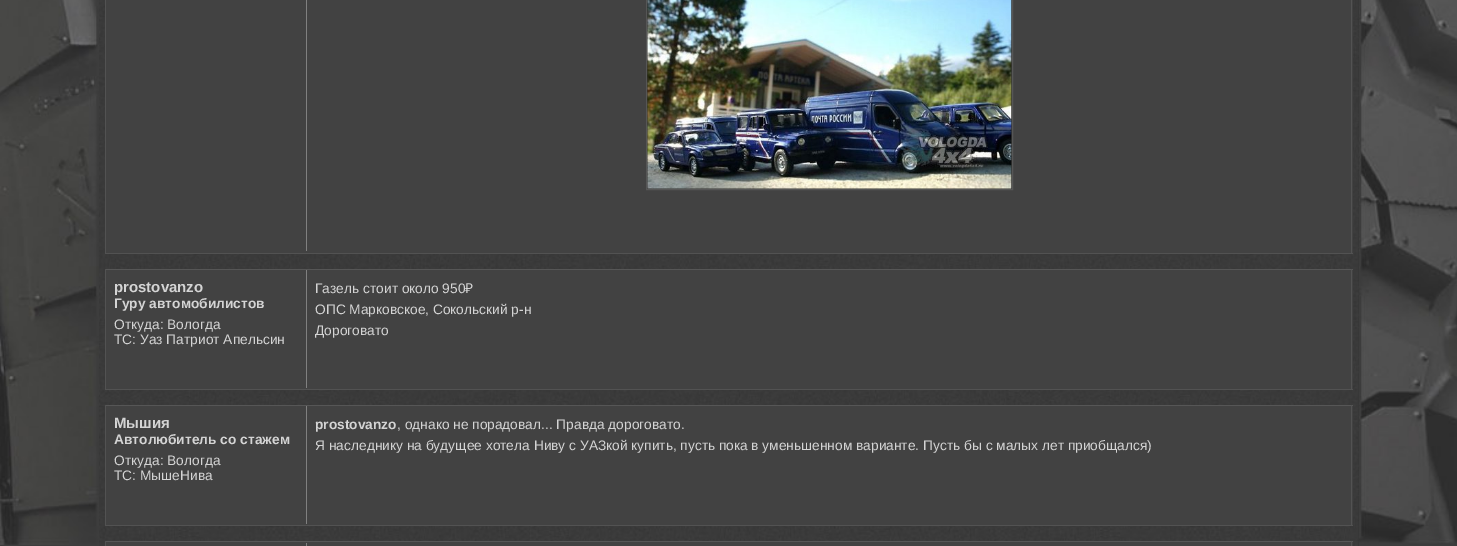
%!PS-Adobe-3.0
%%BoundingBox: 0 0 1457 546
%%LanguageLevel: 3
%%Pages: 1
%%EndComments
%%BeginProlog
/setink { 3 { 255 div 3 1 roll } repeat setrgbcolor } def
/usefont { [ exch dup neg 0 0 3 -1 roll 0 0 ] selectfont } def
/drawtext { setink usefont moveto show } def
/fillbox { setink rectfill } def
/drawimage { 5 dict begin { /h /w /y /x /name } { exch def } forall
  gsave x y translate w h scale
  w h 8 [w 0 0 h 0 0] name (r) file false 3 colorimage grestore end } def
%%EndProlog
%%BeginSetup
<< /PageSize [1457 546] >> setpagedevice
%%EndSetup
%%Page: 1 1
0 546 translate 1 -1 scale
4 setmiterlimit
0 0 1457 546 61 61 61 fillbox
(assets/img1.rgb) 0 0 1457 545 drawimage
(assets/img2.rgb) 99 0 1260 546 drawimage
106 0 1247 253 66 66 66 fillbox
1351 0 1 254 82 82 82 fillbox
105 253 1248 1 82 82 82 fillbox
105 0 1 254 82 82 82 fillbox
306 0 1 251 128 128 128 fillbox
53 53 51 setink
646.5 -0.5 moveto 1012.5 -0.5 lineto 1012.5 189.5 lineto 646.5 189.5 lineto closepath gsave fill grestore
86 86 86 setink
stroke
(assets/img3.rgb) 647 0 365 189 drawimage
106 270 1247 119 66 66 66 fillbox
105 269 1248 1 86 86 86 fillbox
1351 269 1 121 82 82 82 fillbox
105 389 1248 1 82 82 82 fillbox
105 269 1 121 82 82 82 fillbox
(prostovanzo) 114 292 /LiberationSans-Bold 15 212 212 212 drawtext
(Гуру автомобилистов) 114 308 /LiberationSans-Bold 13.75 212 212 212 drawtext
(Откуда: Вологда) 114 329 /LiberationSans-Regular 13.75 212 212 212 drawtext
(ТС: Уаз Патриот Апельсин) 114 344 /LiberationSans-Regular 13.75 212 212 212 drawtext
306 270 1 118 128 128 128 fillbox
(Газель стоит около 950) 315 293 /LiberationSans-Regular 13.75 212 212 212 drawtext
(₽) 465 293 /NotoSans-Regular 13.75 212 212 212 drawtext
(ОПС Марковское, Сокольский р-н) 315 314 /LiberationSans-Regular 13.75 212 212 212 drawtext
(Дороговато) 315 335 /LiberationSans-Regular 13.75 212 212 212 drawtext
106 406 1247 119 66 66 66 fillbox
105 405 1248 1 86 86 86 fillbox
1351 405 1 121 82 82 82 fillbox
105 525 1248 1 82 82 82 fillbox
105 405 1 121 82 82 82 fillbox
(Мышия) 114 428 /LiberationSans-Bold 15 212 212 212 drawtext
(Автолюбитель со стажем) 114 444 /LiberationSans-Bold 13.75 212 212 212 drawtext
(Откуда: Вологда) 114 465 /LiberationSans-Regular 13.75 212 212 212 drawtext
(ТС: МышеНива) 114 480 /LiberationSans-Regular 13.75 212 212 212 drawtext
306 406 1 118 128 128 128 fillbox
(prostovanzo) 315 429 /LiberationSans-Bold 13.75 212 212 212 drawtext
(, однако не порадовал... Правда дороговато.) 397 429 /LiberationSans-Regular 13.75 212 212 212 drawtext
(Я наследнику на будущее хотела Ниву с УАЗкой купить, пусть пока в уменьшенном варианте. Пусть бы с малых лет приобщался\)) 315 450 /LiberationSans-Regular 13.75 212 212 212 drawtext
105 542 1248 4 66 66 66 fillbox
105 541 1248 1 86 86 86 fillbox
1351 541 1 5 82 82 82 fillbox
105 541 1 5 82 82 82 fillbox
306 543 1 3 128 128 128 fillbox
showpage
%%EOF
